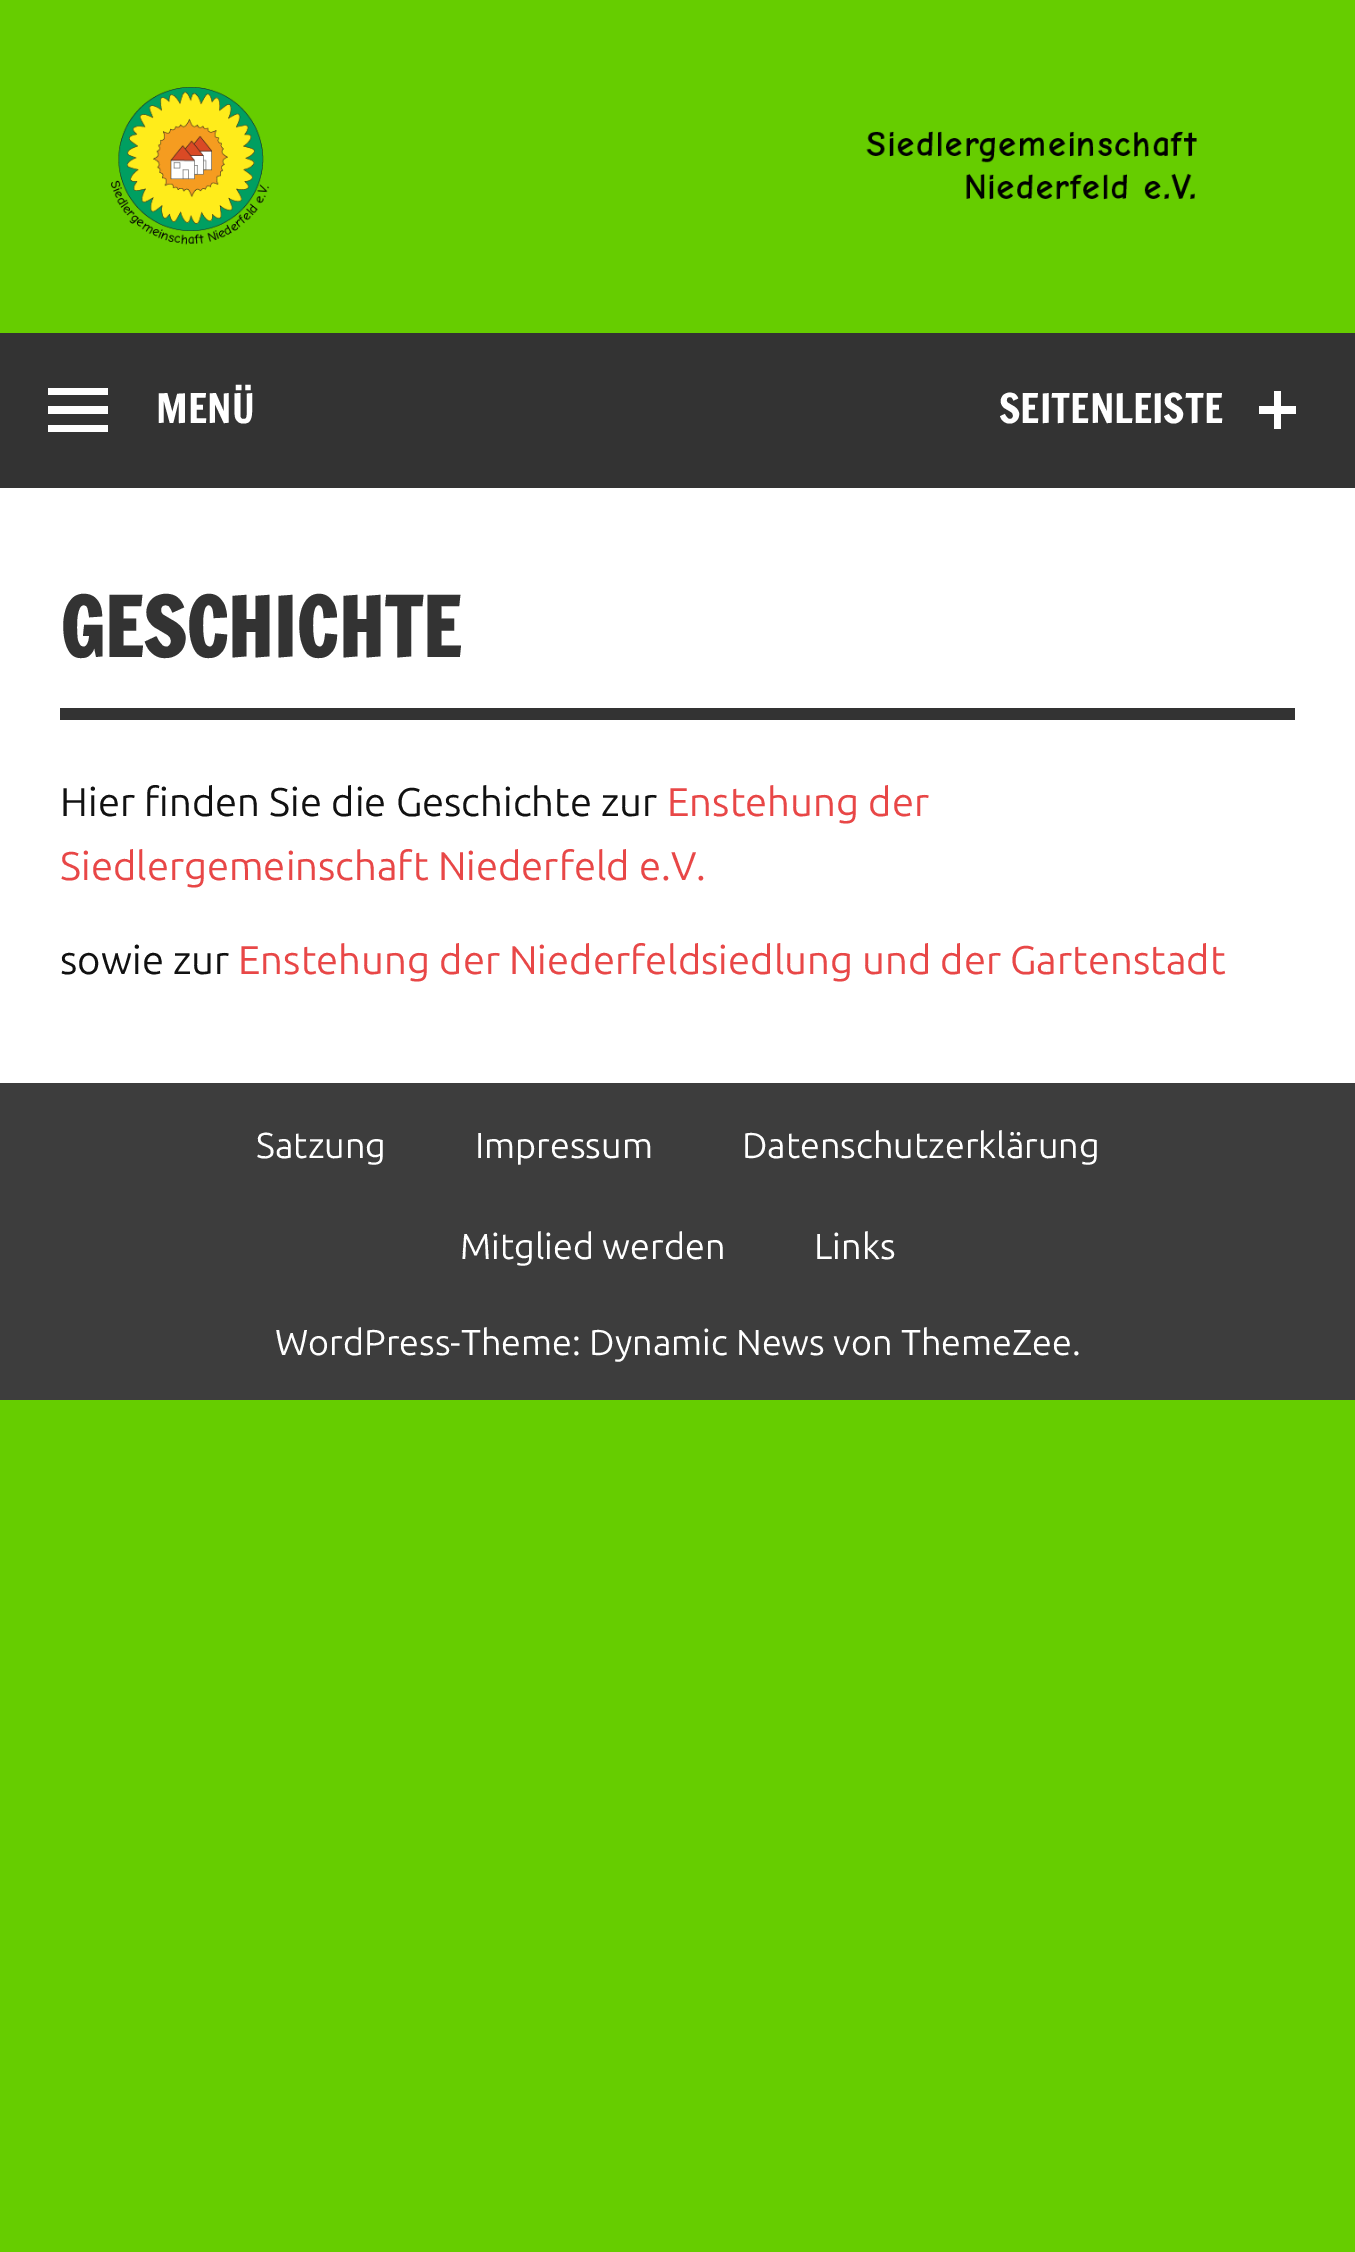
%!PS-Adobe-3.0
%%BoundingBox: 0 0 1355 2252
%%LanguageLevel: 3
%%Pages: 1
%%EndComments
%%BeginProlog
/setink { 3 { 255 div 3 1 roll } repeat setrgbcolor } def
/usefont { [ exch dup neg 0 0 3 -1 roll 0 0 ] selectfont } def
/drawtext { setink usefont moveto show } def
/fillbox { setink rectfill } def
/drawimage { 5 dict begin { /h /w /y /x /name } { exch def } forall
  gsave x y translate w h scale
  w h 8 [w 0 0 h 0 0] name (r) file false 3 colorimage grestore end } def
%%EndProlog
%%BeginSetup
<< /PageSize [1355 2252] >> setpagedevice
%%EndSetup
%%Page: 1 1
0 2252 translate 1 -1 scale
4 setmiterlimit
0 0 1355 2252 102 205 0 fillbox
0 488 1355 595 255 255 255 fillbox
(assets/img1.rgb) 111 87 1086 158 drawimage
0 333 1355 155 51 51 51 fillbox
255 255 255 setink
48 432 moveto 48 425 lineto 108 425 lineto 108 432 lineto closepath 48 388 moveto 108 388 lineto 108 395 lineto 48 395 lineto closepath 48 414 moveto 48 406 lineto 108 406 lineto 108 414 lineto closepath fill
(MENÜ) 156 423 /FrancoisOne-Regular 40 255 255 255 drawtext
(SEITENLEISTE) 999 423 /FrancoisOne-Regular 40 255 255 255 drawtext
1296 406 moveto 1296 414 lineto 1281 414 lineto 1281 429 lineto 1274 429 lineto 1274 414 lineto 1259 414 lineto 1259 406 lineto 1274 406 lineto 1274 391 lineto 1281 391 lineto 1281 406 lineto closepath fill
60 708 1235 12 51 51 51 fillbox
(GESCHICHTE) 60 657 /FrancoisOne-Bold 80 51 51 51 drawtext
(Hier finden Sie die Geschichte zur) 60 816 /Ubuntu-Regular 40 17 17 17 drawtext
(Enstehung der) 667 816 /Ubuntu-Regular 40 232 71 71 drawtext
(Siedlergemeinschaft Niederfeld e.V.) 60 880 /Ubuntu-Regular 40 232 71 71 drawtext
(sowie zur) 60 974 /Ubuntu-Regular 40 17 17 17 drawtext
(Enstehung der Niederfeldsiedlung und der Gartenstadt) 238 974 /Ubuntu-Regular 40 232 71 71 drawtext
0 1083 1355 317 61 61 61 fillbox
(Satzung) 256 1158 /Ubuntu-Regular 36 255 255 255 drawtext
(Impressum) 475 1158 /Ubuntu-Regular 36 255 255 255 drawtext
(Datenschutzerklärung) 742 1158 /Ubuntu-Regular 36 255 255 255 drawtext
(Mitglied werden) 460 1259 /Ubuntu-Regular 36 255 255 255 drawtext
(Links) 814 1259 /Ubuntu-Regular 36 255 255 255 drawtext
(WordPress-Theme: Dynamic News von ThemeZee.) 275 1355 /Ubuntu-Regular 36 255 255 255 drawtext
showpage
%%EOF
